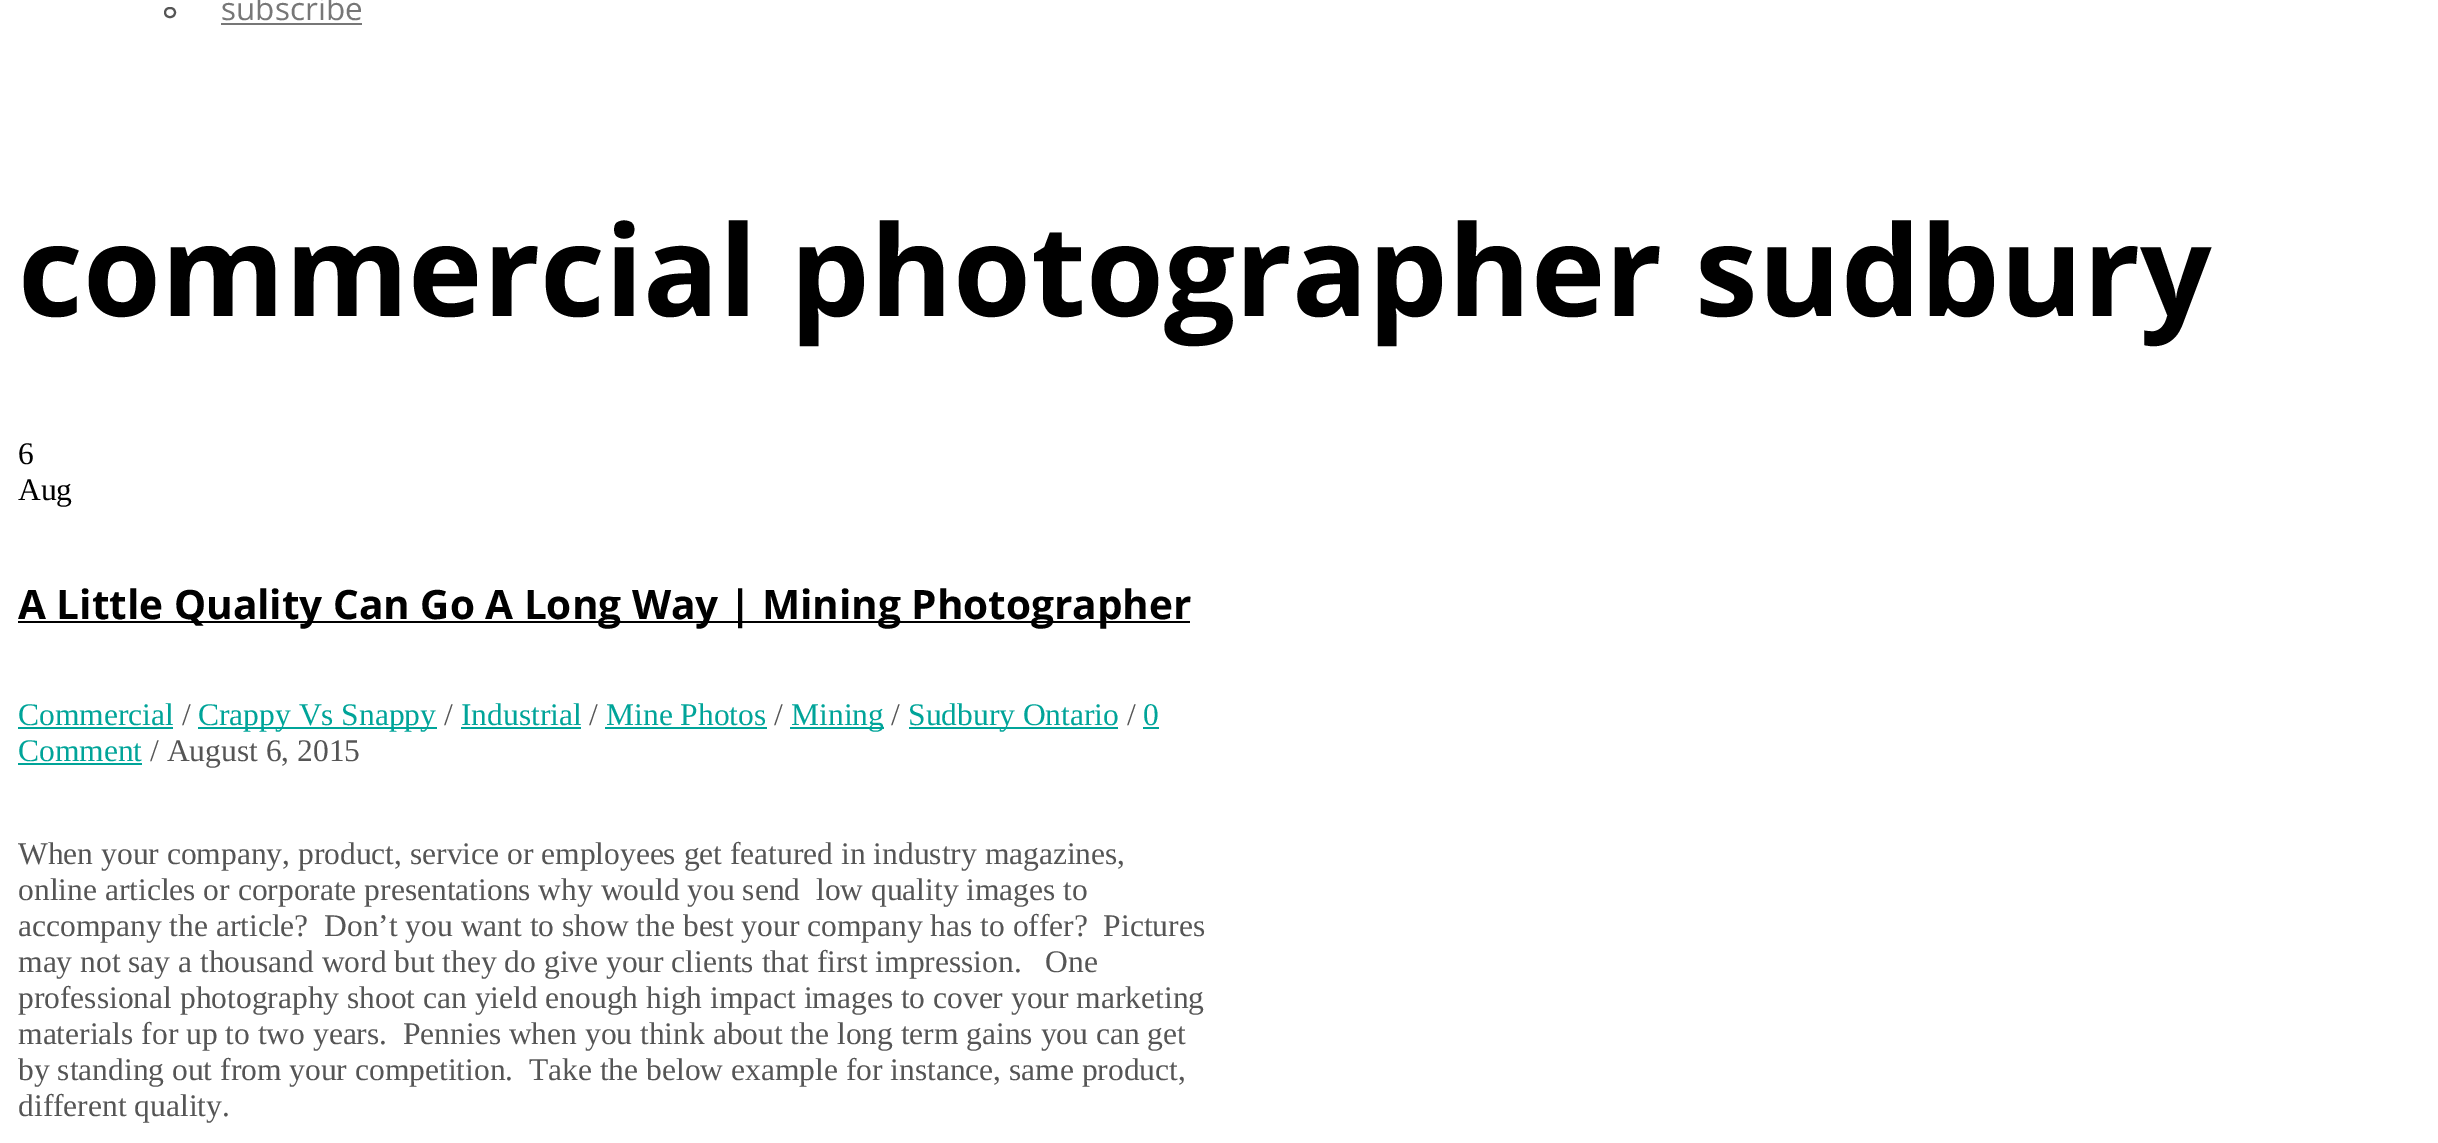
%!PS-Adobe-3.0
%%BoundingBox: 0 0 2438 1143
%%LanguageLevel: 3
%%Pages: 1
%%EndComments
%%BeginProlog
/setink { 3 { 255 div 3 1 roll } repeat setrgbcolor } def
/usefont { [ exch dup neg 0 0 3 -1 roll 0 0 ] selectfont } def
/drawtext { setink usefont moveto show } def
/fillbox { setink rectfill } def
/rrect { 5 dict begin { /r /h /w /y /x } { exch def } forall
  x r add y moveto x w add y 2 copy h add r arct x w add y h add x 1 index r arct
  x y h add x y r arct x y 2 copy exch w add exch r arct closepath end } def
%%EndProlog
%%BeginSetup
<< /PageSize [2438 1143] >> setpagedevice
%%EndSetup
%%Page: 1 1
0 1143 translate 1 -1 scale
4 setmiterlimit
0 0 2438 1143 255 255 255 fillbox
85 85 85 setink
2 setlinewidth
165 8 10 9 4.5 rrect stroke
(subscribe) 221 20 /OpenSans-Regular 31.5 119 119 119 drawtext
221 23 141 2 119 119 119 fillbox
(commercial photographer sudbury) 18 316 /OpenSans-Bold 126 0 0 0 drawtext
(6) 18 464 /LiberationSerif-Regular 31.5 0 0 0 drawtext
(Aug) 18 500 /LiberationSerif-Regular 31.5 0 0 0 drawtext
18 621 1172 2 0 0 0 fillbox
(A Little Quality Can Go A Long Way | Mining Photographer) 18 619 /OpenSans-Bold 40.5 0 0 0 drawtext
(Commercial) 18 725 /LiberationSerif-Regular 31.5 0 164 153 drawtext
18 727 155 2 0 164 153 fillbox
(/) 182 725 /LiberationSerif-Regular 31.5 85 85 85 drawtext
198 727 239 2 0 164 153 fillbox
(Crappy Vs Snappy) 198 725 /LiberationSerif-Regular 31.5 0 164 153 drawtext
(/) 444 725 /LiberationSerif-Regular 31.5 85 85 85 drawtext
(Industrial) 461 725 /LiberationSerif-Regular 31.5 0 164 153 drawtext
461 727 120 2 0 164 153 fillbox
(/) 589 725 /LiberationSerif-Regular 31.5 85 85 85 drawtext
(Mine Photos) 606 725 /LiberationSerif-Regular 31.5 0 164 153 drawtext
605 727 162 2 0 164 153 fillbox
(/) 774 725 /LiberationSerif-Regular 31.5 85 85 85 drawtext
790 727 94 2 0 164 153 fillbox
(Mining) 791 725 /LiberationSerif-Regular 31.5 0 164 153 drawtext
(/) 891 725 /LiberationSerif-Regular 31.5 85 85 85 drawtext
909 727 209 2 0 164 153 fillbox
(Sudbury Ontario) 908 725 /LiberationSerif-Regular 31.5 0 164 153 drawtext
(/) 1127 725 /LiberationSerif-Regular 31.5 85 85 85 drawtext
(0) 1143 725 /LiberationSerif-Regular 31.5 0 164 153 drawtext
1143 727 16 2 0 164 153 fillbox
(Comment) 18 761 /LiberationSerif-Regular 31.5 0 164 153 drawtext
18 763 124 2 0 164 153 fillbox
(/ August 6, 2015) 150 761 /LiberationSerif-Regular 31.5 85 85 85 drawtext
(When your company, product, service or employees get featured in industry magazines,) 18 864 /LiberationSerif-Regular 31.5 85 85 85 drawtext
(online articles or corporate presentations why would you send  low quality images to) 18 900 /LiberationSerif-Regular 31.5 85 85 85 drawtext
(accompany the article?  Don’t you want to show the best your company has to offer?  Pictures) 18 936 /LiberationSerif-Regular 31.5 85 85 85 drawtext
(may not say a thousand word but they do give your clients that first impression.   One) 18 972 /LiberationSerif-Regular 31.5 85 85 85 drawtext
(professional photography shoot can yield enough high impact images to cover your marketing) 18 1008 /LiberationSerif-Regular 31.5 85 85 85 drawtext
(materials for up to two years.  Pennies when you think about the long term gains you can get) 18 1044 /LiberationSerif-Regular 31.5 85 85 85 drawtext
(by standing out from your competition.  Take the below example for instance, same product,) 18 1080 /LiberationSerif-Regular 31.5 85 85 85 drawtext
(different quality.) 18 1116 /LiberationSerif-Regular 31.5 85 85 85 drawtext
showpage
%%EOF
